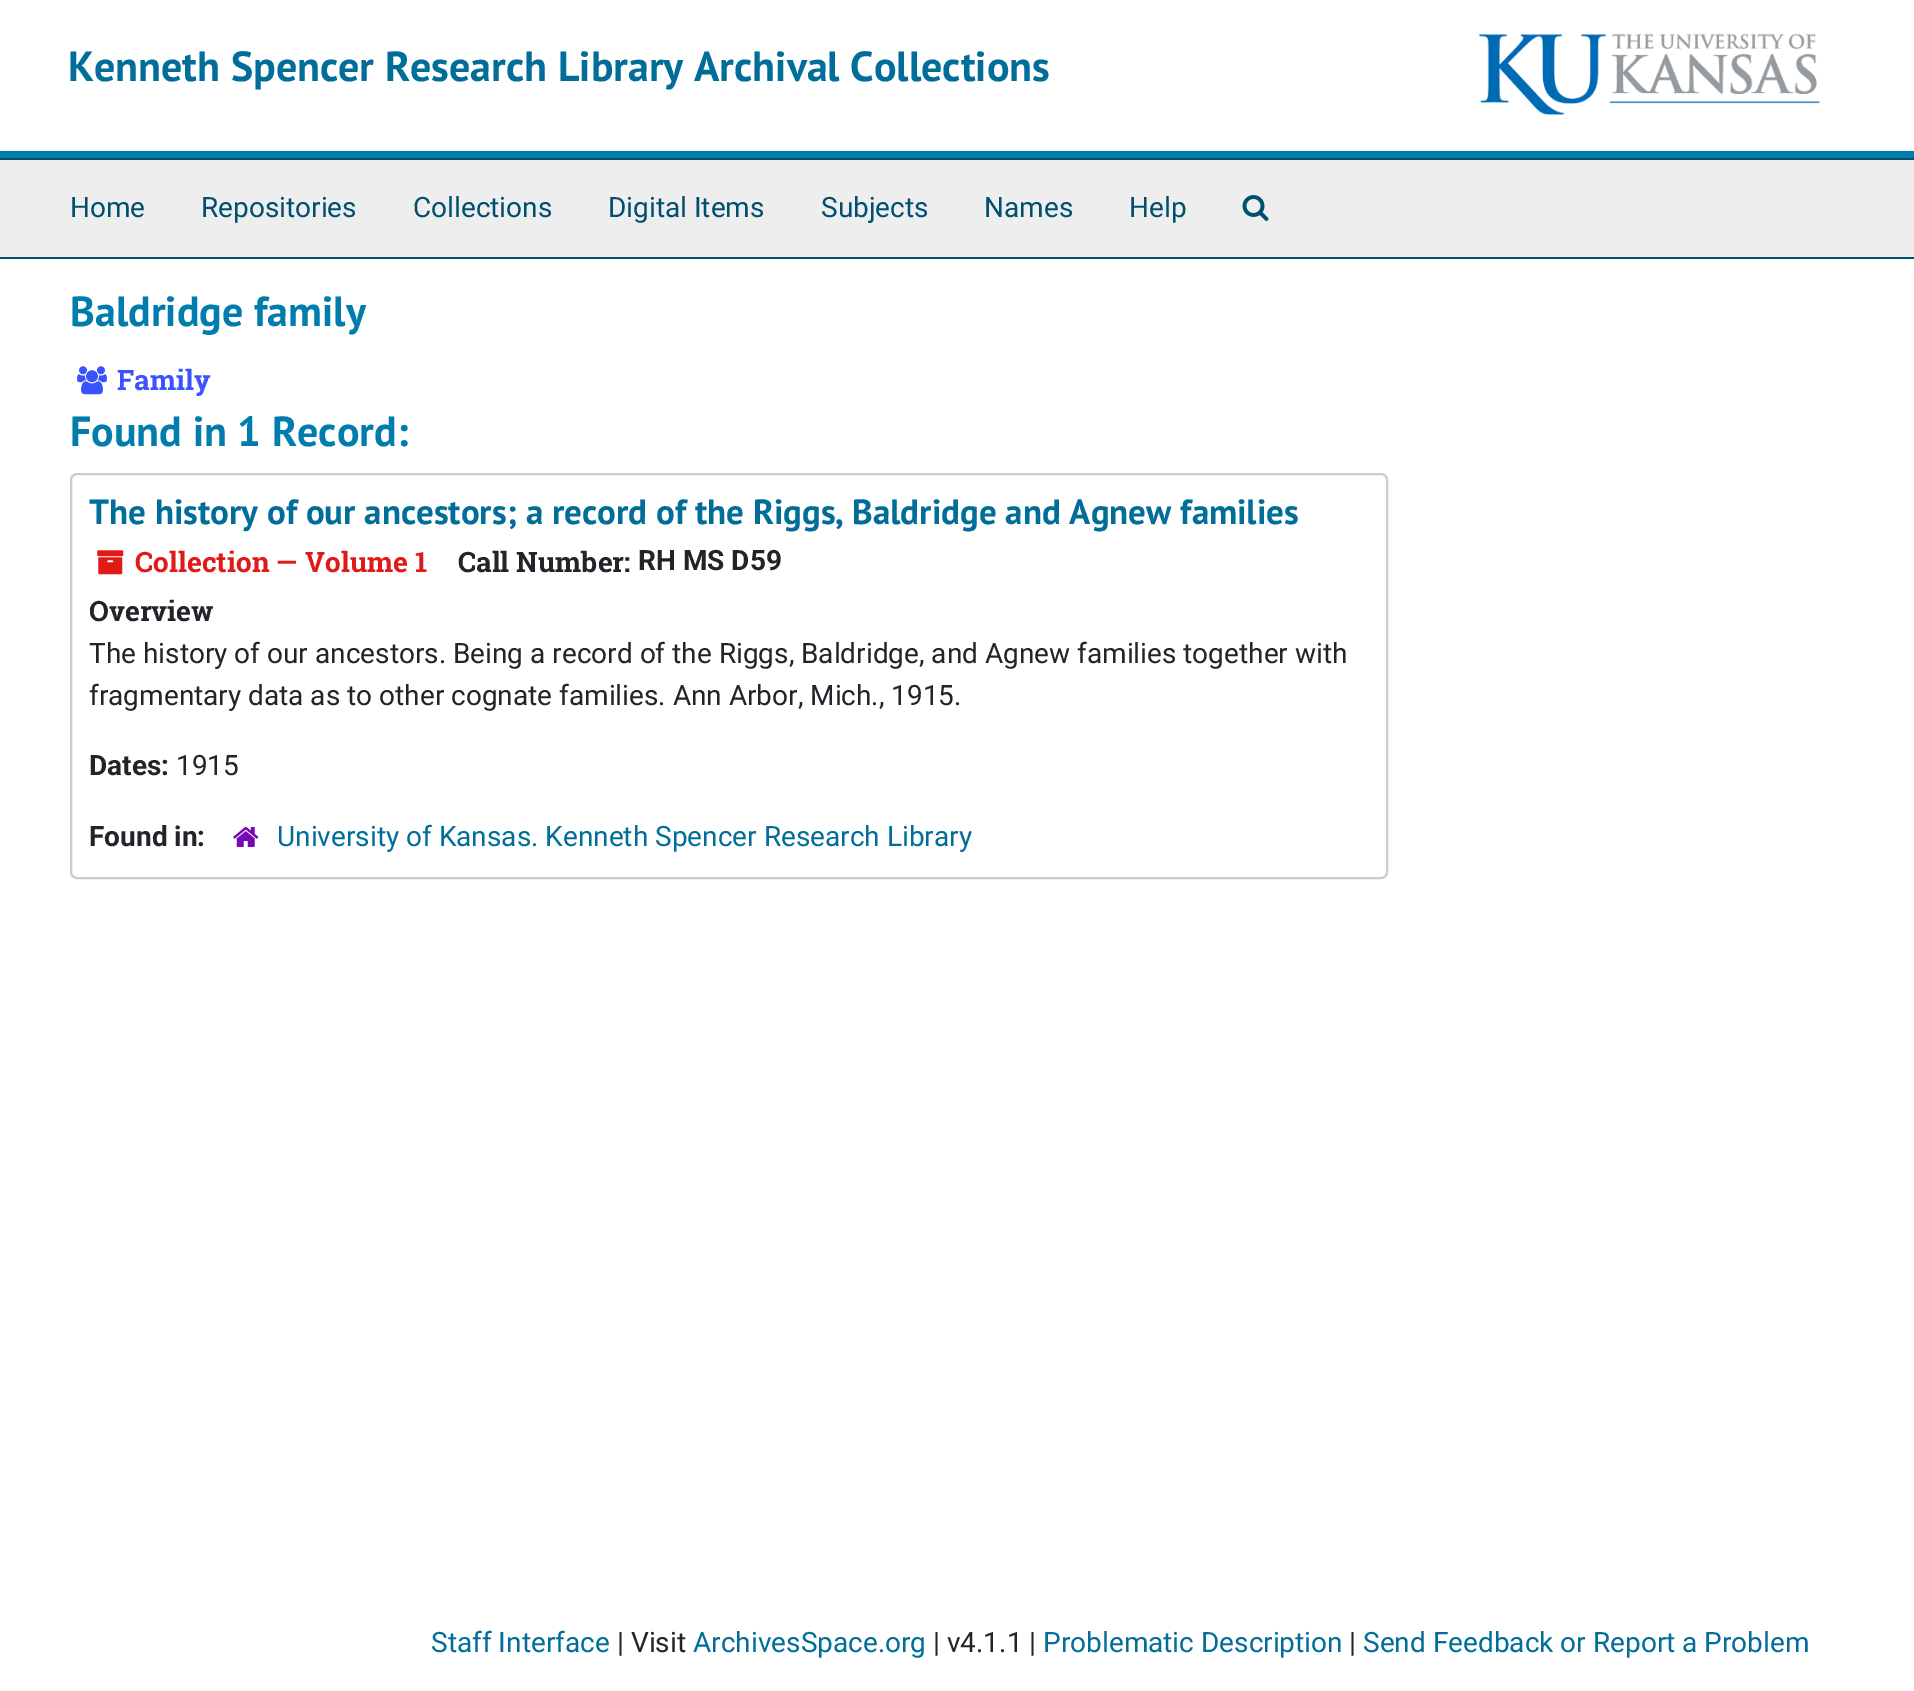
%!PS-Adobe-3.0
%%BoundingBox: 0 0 1914 1691
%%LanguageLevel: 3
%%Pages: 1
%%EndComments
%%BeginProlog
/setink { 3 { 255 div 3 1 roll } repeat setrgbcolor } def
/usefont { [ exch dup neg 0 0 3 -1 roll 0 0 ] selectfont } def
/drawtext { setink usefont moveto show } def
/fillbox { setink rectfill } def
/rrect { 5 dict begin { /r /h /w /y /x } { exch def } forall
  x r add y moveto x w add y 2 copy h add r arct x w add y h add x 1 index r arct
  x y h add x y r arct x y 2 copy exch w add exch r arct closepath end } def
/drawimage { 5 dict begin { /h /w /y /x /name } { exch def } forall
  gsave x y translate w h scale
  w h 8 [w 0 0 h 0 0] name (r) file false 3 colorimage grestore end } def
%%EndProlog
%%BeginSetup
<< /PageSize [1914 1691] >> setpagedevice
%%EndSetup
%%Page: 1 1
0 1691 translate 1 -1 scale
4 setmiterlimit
0 0 1914 1691 255 255 255 fillbox
0 151 1914 7 0 124 173 fillbox
(Kenneth Spencer Research Library Archival Collections) 68 81 /PTSans-Bold 42 0 110 153 drawtext
(assets/img1.rgb) 1479 33 341 82 drawimage
0 160 1914 97 238 238 238 fillbox
0 158 1914 2 0 79 111 fillbox
0 257 1914 2 0 79 111 fillbox
(Home) 70 217 /Roboto-Regular 28 0 79 111 drawtext
(Repositories) 201 217 /Roboto-Regular 28 0 79 111 drawtext
(Collections) 413 217 /Roboto-Regular 28 0 79 111 drawtext
(Digital Items) 608 217 /Roboto-Regular 28 0 79 111 drawtext
(Subjects) 821 217 /Roboto-Regular 28 0 79 111 drawtext
(Names) 984 217 /Roboto-Regular 28 0 79 111 drawtext
(Help) 1129 217 /Roboto-Regular 28 0 79 111 drawtext
(assets/img2.rgb) 1242 195 27 26 drawimage
(Baldridge family) 70 326 /PTSans-Bold 42 0 124 173 drawtext
(assets/img3.rgb) 77 366 30 29 drawimage
(Family) 117 390 /RobotoSlab-Bold 28 59 82 255 drawtext
(Found in 1 Record:) 70 446 /PTSans-Bold 42 0 124 173 drawtext
204 204 204 setink
2 setlinewidth
71 474 1316 404 6 rrect stroke
(The history of our ancestors; a record of the Riggs, Baldridge and Agnew families) 89 524 /PTSans-Bold 35 0 110 153 drawtext
(assets/img4.rgb) 97 550 27 25 drawimage
(Collection — Volume 1) 135 572 /RobotoSlab-Bold 28 224 25 25 drawtext
(Call Number:) 458 572 /RobotoSlab-Bold 28 33 37 41 drawtext
(RH MS D59) 638 570 /Roboto-Bold 28 33 37 41 drawtext
(Overview) 89 621 /RobotoSlab-Bold 28 33 37 41 drawtext
(The history of our ancestors. Being a record of the Riggs, Baldridge, and Agnew families together with) 89 663 /Roboto-Regular 28 33 37 41 drawtext
(fragmentary data as to other cognate families. Ann Arbor, Mich., 1915.) 89 705 /Roboto-Regular 28 33 37 41 drawtext
(Dates:) 89 775 /Roboto-Bold 28 33 37 41 drawtext
(1915) 176 775 /Roboto-Regular 28 33 37 41 drawtext
(Found in:) 89 846 /Roboto-Bold 28 33 37 41 drawtext
(assets/img5.rgb) 233 827 26 20 drawimage
(University of Kansas. Kenneth Spencer Research Library) 277 846 /Roboto-Regular 28 0 110 153 drawtext
(Staff Interface) 431 1652 /Roboto-Regular 28 0 110 153 drawtext
(| Visit) 617 1652 /Roboto-Regular 28 33 37 41 drawtext
(ArchivesSpace.org) 693 1652 /Roboto-Regular 28 0 110 153 drawtext
(| v4.1.1 |) 933 1652 /Roboto-Regular 28 33 37 41 drawtext
(Problematic Description) 1043 1652 /Roboto-Regular 28 0 110 153 drawtext
(|) 1349 1652 /Roboto-Regular 28 33 37 41 drawtext
(Send Feedback or Report a Problem) 1363 1652 /Roboto-Regular 28 0 110 153 drawtext
showpage
%%EOF
